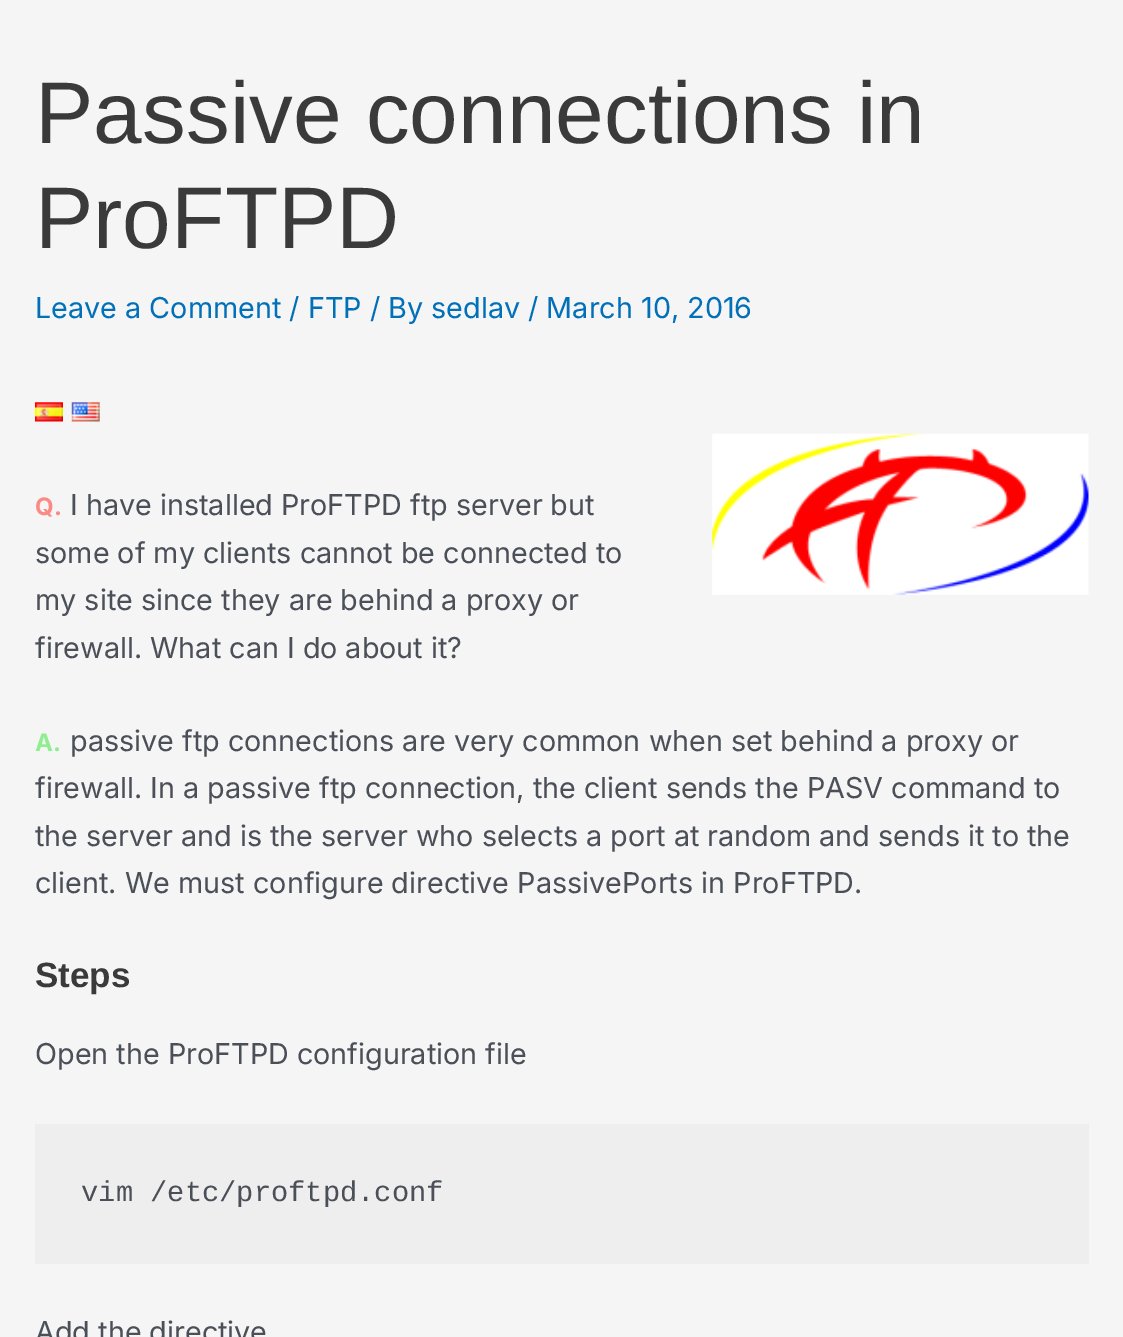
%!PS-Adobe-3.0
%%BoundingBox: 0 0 1123 1337
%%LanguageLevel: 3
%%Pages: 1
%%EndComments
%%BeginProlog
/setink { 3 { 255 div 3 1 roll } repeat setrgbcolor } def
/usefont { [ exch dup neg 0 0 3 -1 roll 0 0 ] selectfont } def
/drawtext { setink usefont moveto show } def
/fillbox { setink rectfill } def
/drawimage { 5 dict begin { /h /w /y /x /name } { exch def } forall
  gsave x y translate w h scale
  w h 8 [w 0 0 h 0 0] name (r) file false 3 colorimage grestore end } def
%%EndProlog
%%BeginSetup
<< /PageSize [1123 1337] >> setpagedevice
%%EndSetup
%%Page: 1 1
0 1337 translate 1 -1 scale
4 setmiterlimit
0 0 1123 1337 245 245 245 fillbox
(Passive connections in) 35 143 /LiberationSans-Regular 87.5 58 58 58 drawtext
(ProFTPD) 35 248 /LiberationSans-Regular 87.5 58 58 58 drawtext
(Leave a Comment / FTP / By sedlav / March 10, 2016) 35 318 /Inter-Regular 28.75 1 112 185 drawtext
(assets/img1.rgb) 35 402 28 20 drawimage
(assets/img2.rgb) 71 402 29 20 drawimage
(Q.) 35 515 /Inter-Bold 24 252 138 132 drawtext
(I have installed ProFTPD ftp server but) 70 515 /Inter-Regular 28.75 75 79 88 drawtext
(assets/img3.rgb) 712 433 377 162 drawimage
(some of my clients cannot be connected to) 35 563 /Inter-Regular 28.75 75 79 88 drawtext
(my site since they are behind a proxy or) 35 610 /Inter-Regular 28.75 75 79 88 drawtext
(firewall. What can I do about it?) 35 658 /Inter-Regular 28.75 75 79 88 drawtext
(A.) 35 751 /Inter-Bold 24 144 238 144 drawtext
(passive ftp connections are very common when set behind a proxy or) 70 751 /Inter-Regular 28.75 75 79 88 drawtext
(firewall. In a passive ftp connection, the client sends the PASV command to) 35 798 /Inter-Regular 28.75 75 79 88 drawtext
(the server and is the server who selects a port at random and sends it to the) 35 846 /Inter-Regular 28.75 75 79 88 drawtext
(client. We must configure directive PassivePorts in ProFTPD.) 35 893 /Inter-Regular 28.75 75 79 88 drawtext
(Steps) 35 987 /LiberationSans-Bold 35 58 58 58 drawtext
(Open the ProFTPD configuration file) 35 1064 /Inter-Regular 28.75 75 79 88 drawtext
35 1124 1054 140 238 238 238 fillbox
(vim /etc/proftpd.conf) 81 1201 /LiberationMono-Regular 28.75 75 79 88 drawtext
(Add the directive) 35 1342 /Inter-Regular 28.75 75 79 88 drawtext
showpage
%%EOF
